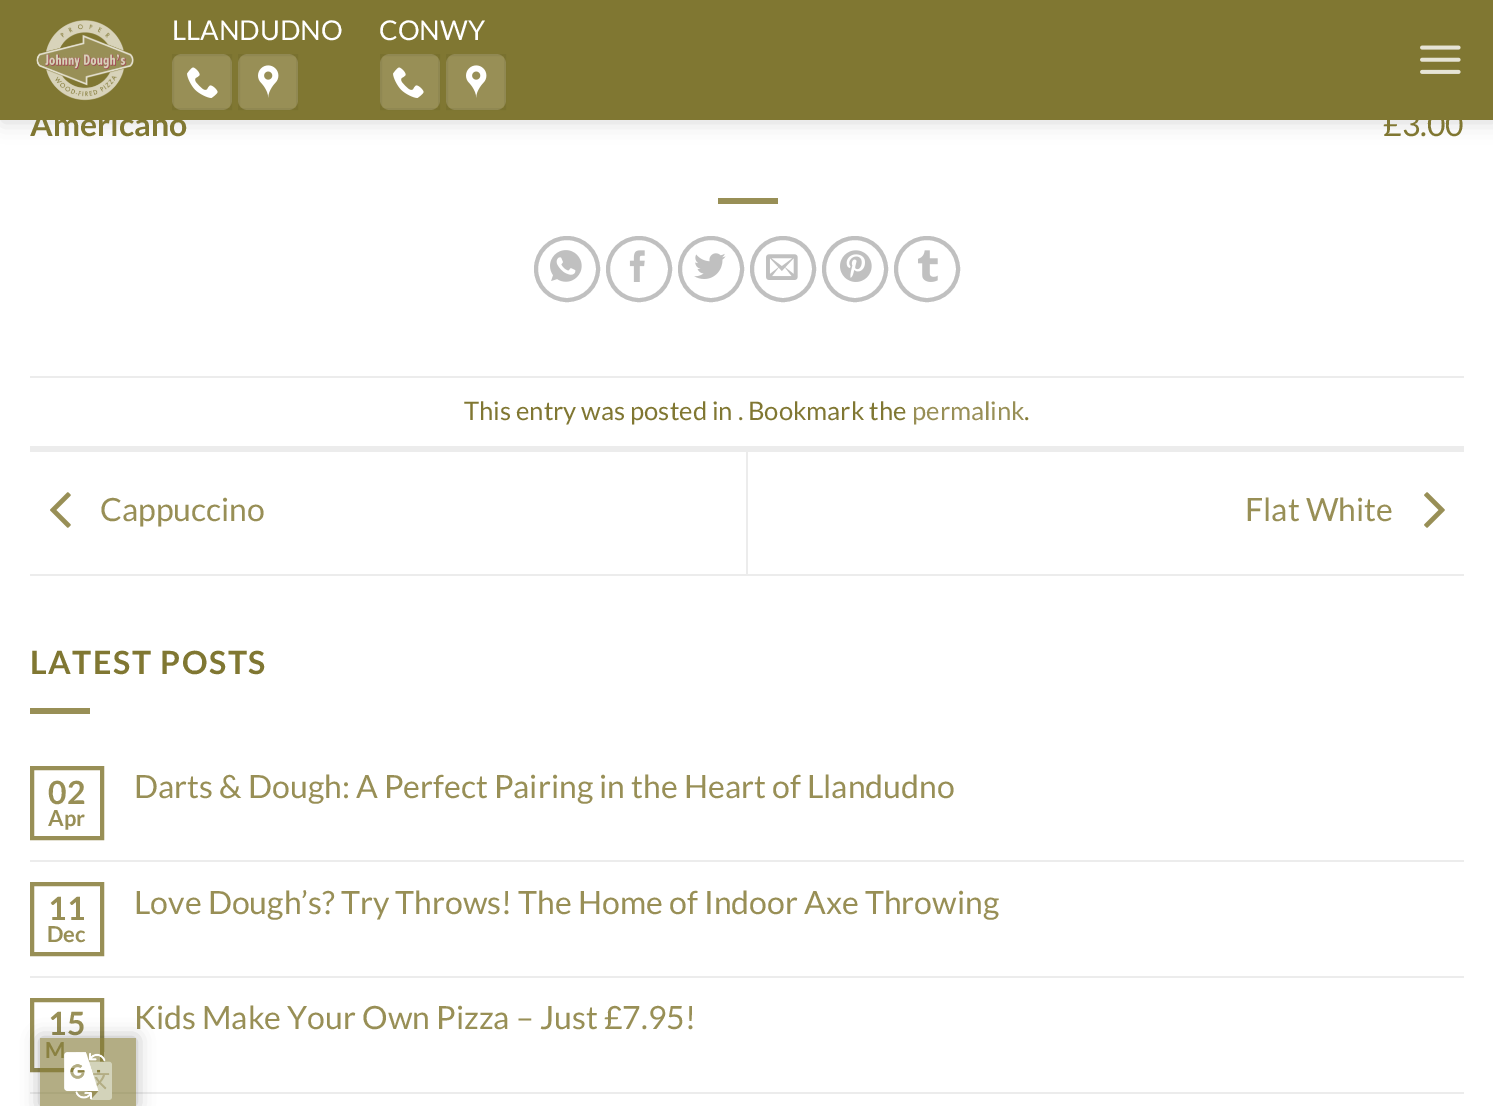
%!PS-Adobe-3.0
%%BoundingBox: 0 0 1493 1106
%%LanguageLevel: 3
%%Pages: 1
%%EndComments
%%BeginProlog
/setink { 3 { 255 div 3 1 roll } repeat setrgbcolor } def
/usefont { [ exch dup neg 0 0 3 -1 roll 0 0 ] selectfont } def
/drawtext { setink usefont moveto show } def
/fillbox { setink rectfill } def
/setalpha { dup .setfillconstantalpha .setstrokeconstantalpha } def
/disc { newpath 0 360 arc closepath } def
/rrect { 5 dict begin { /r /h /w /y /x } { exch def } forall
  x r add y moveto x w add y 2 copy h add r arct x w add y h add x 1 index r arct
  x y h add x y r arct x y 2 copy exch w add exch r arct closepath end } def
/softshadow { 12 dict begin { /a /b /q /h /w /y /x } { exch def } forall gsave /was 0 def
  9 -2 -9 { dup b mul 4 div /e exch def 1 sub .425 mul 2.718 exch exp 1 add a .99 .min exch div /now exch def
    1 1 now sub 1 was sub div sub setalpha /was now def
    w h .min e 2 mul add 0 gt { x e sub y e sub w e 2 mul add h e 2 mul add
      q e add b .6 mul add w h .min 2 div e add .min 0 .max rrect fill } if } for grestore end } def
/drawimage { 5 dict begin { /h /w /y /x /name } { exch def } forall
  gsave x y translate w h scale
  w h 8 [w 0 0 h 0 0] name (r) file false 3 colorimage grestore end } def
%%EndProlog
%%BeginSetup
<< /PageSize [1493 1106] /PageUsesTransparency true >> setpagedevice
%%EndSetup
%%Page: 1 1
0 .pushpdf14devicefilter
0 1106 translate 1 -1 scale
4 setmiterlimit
0 0 1493 1106 255 255 255 fillbox
0 0 0 setink
2 2 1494 120 0 10 0.15 softshadow
0 0 1493 120 128 119 50 fillbox
(assets/img1.rgb) 36 20 98 81 drawimage
(LLANDUDNO) 172 40 /Lato-Regular 27.25 255 255 255 drawtext
152 143 86 setink
172 54 60 56 10 rrect fill
0.05 setalpha
0 0 0 setink
2 setlinewidth
173 55 58 54 rectstroke
1 setalpha
(assets/img2.rgb) 187 67 31 31 drawimage
152 143 86 setink
238 54 60 56 10 rrect fill
0.05 setalpha
0 0 0 setink
239 55 58 54 rectstroke
1 setalpha
(assets/img3.rgb) 258 65 21 33 drawimage
(CONWY) 379 40 /Lato-Regular 27.25 255 255 255 drawtext
152 143 86 setink
380 54 60 56 10 rrect fill
0.05 setalpha
0 0 0 setink
381 55 58 54 rectstroke
1 setalpha
(assets/img2.rgb) 393 67 31 31 drawimage
152 143 86 setink
446 54 60 56 10 rrect fill
0.05 setalpha
0 0 0 setink
447 55 58 54 rectstroke
1 setalpha
(assets/img3.rgb) 466 65 21 33 drawimage
(assets/img4.rgb) 1420 45 41 29 drawimage
(Americano) 30 136 /Lato-Bold 32 128 119 50 drawtext
(£3.00) 1383 136 /Lato-Regular 32 128 119 50 drawtext
718 198 60 6 152 143 86 fillbox
192 192 192 setink
4 setlinewidth
567 269 31 disc stroke
(assets/img5.rgb) 550 250 32 32 drawimage
639 269 31 disc stroke
(assets/img6.rgb) 629 250 16 32 drawimage
711 269 31 disc stroke
(assets/img7.rgb) 694 253 32 26 drawimage
783 269 31 disc stroke
(assets/img8.rgb) 766 254 32 26 drawimage
855 269 31 disc stroke
(assets/img9.rgb) 840 250 32 32 drawimage
927 269 31 disc stroke
(assets/img10.rgb) 918 250 20 32 drawimage
30 376 1434 2 236 236 236 fillbox
30 446 1434 6 236 236 236 fillbox
(This entry was posted in . Bookmark the) 464 420 /Lato-Regular 25.6 128 119 50 drawtext
(permalink) 912 420 /Lato-Regular 25.6 152 143 86 drawtext
(.) 1024 420 /Lato-Regular 25.6 128 119 50 drawtext
30 574 1434 2 236 236 236 fillbox
(assets/img11.rgb) 50 492 21 36 drawimage
(Cappuccino) 100 521 /Lato-Regular 32 152 143 86 drawtext
746 452 2 122 236 236 236 fillbox
(Flat White) 1245 521 /Lato-Regular 32 152 143 86 drawtext
(assets/img12.rgb) 1424 492 21 36 drawimage
/Lato-Bold 32 usefont
128 119 50 setink
30 674 moveto 1.6 0 (LATEST POSTS) ashow
30 708 60 6 152 143 86 fillbox
32 768 70 70 rectstroke
(02) 48 804 /Lato-Bold 32 152 143 86 drawtext
(Apr) 48 826 /Lato-Bold 22 152 143 86 drawtext
(Darts & Dough: A Perfect Pairing in the Heart of Llandudno) 134 798 /Lato-Regular 32 152 143 86 drawtext
30 860 1434 2 236 236 236 fillbox
152 143 86 setink
32 884 70 70 rectstroke
(11) 48 920 /Lato-Bold 32 152 143 86 drawtext
(Dec) 47 942 /Lato-Bold 22 152 143 86 drawtext
(Love Dough’s? Try Throws! The Home of Indoor Axe Throwing) 134 914 /Lato-Regular 32 152 143 86 drawtext
30 976 1434 2 236 236 236 fillbox
152 143 86 setink
32 1000 70 70 rectstroke
(15) 48 1035 /Lato-Bold 32 152 143 86 drawtext
(M) 45 1058 /Lato-Bold 22 152 143 86 drawtext
(Kids Make Your Own Pizza – Just £7.95!) 134 1029 /Lato-Regular 32 152 143 86 drawtext
30 1092 1434 2 236 236 236 fillbox
gsave
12 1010 moveto 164 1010 lineto 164 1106 lineto 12 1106 lineto closepath 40 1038 moveto 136 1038 lineto 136 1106 lineto 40 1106 lineto closepath eoclip newpath
0 0 0 setink
40 1038 96 68 0 9 0.3 softshadow
grestore
0.6 setalpha
40 1038 96 68 128 119 50 fillbox
1 setalpha
(assets/img13.rgb) 64 1052 48 48 drawimage
.poppdf14devicefilter showpage
%%EOF
